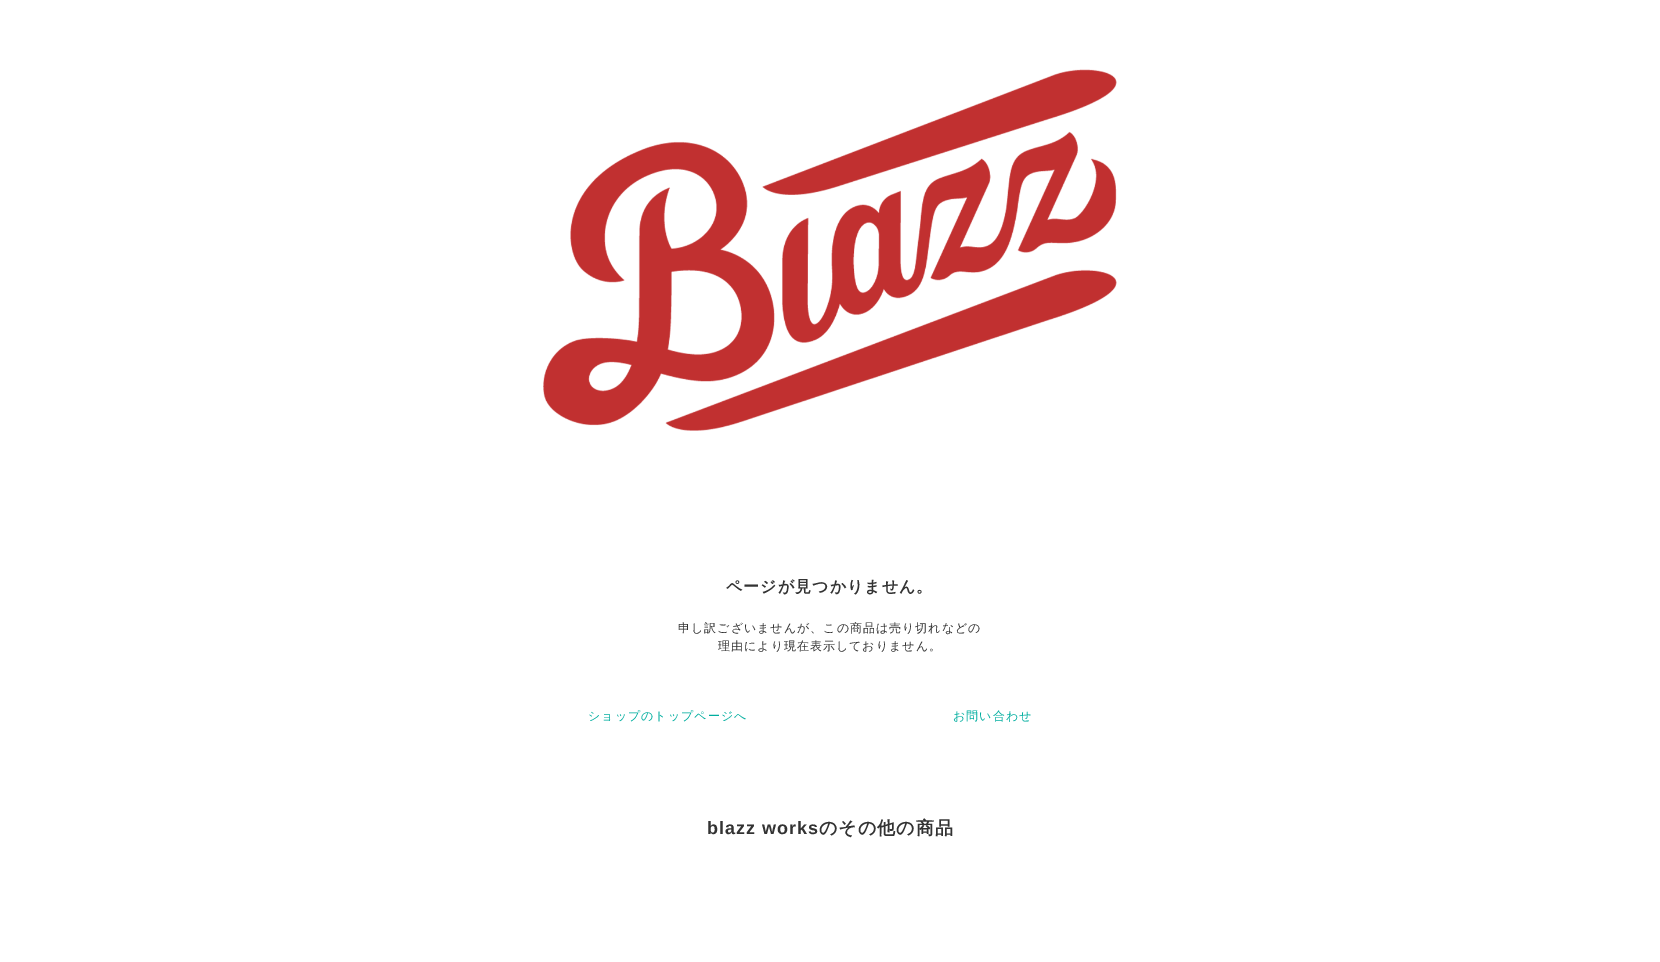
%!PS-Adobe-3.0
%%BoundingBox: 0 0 1660 962
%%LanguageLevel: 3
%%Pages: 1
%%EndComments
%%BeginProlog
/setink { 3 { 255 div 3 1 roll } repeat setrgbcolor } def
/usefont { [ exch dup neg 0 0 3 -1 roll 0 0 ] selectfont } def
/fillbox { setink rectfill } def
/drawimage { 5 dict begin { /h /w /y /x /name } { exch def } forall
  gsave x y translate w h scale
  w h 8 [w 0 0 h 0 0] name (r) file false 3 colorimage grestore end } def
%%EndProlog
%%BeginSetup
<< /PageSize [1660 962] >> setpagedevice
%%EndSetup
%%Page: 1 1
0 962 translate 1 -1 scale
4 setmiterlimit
0 0 1660 962 255 255 255 fillbox
(assets/img1.rgb) 543 69 574 362 drawimage
/WenQuanYiZenHei-Bold 16 usefont
51 51 51 setink
726 592 moveto 1 0 (ページが見つかりません。) ashow
/WenQuanYiZenHei-Medium 12 usefont
678 632 moveto 1 0 (申し訳ございませんが、この商品は売り切れなどの) ashow
718 650 moveto 1 0 (理由により現在表示しておりません。) ashow
0 174 159 setink
588 720 moveto 1 0 (ショップのトップページへ) ashow
953 720 moveto 1 0 (お問い合わせ) ashow
/LiberationSans-Bold 18 usefont
51 51 51 setink
707 834 moveto 1 0 (blazz works) ashow
/WenQuanYiZenHei-Bold 18 usefont
819 834 moveto 1 0 (のその他の商品) ashow
showpage
%%EOF
